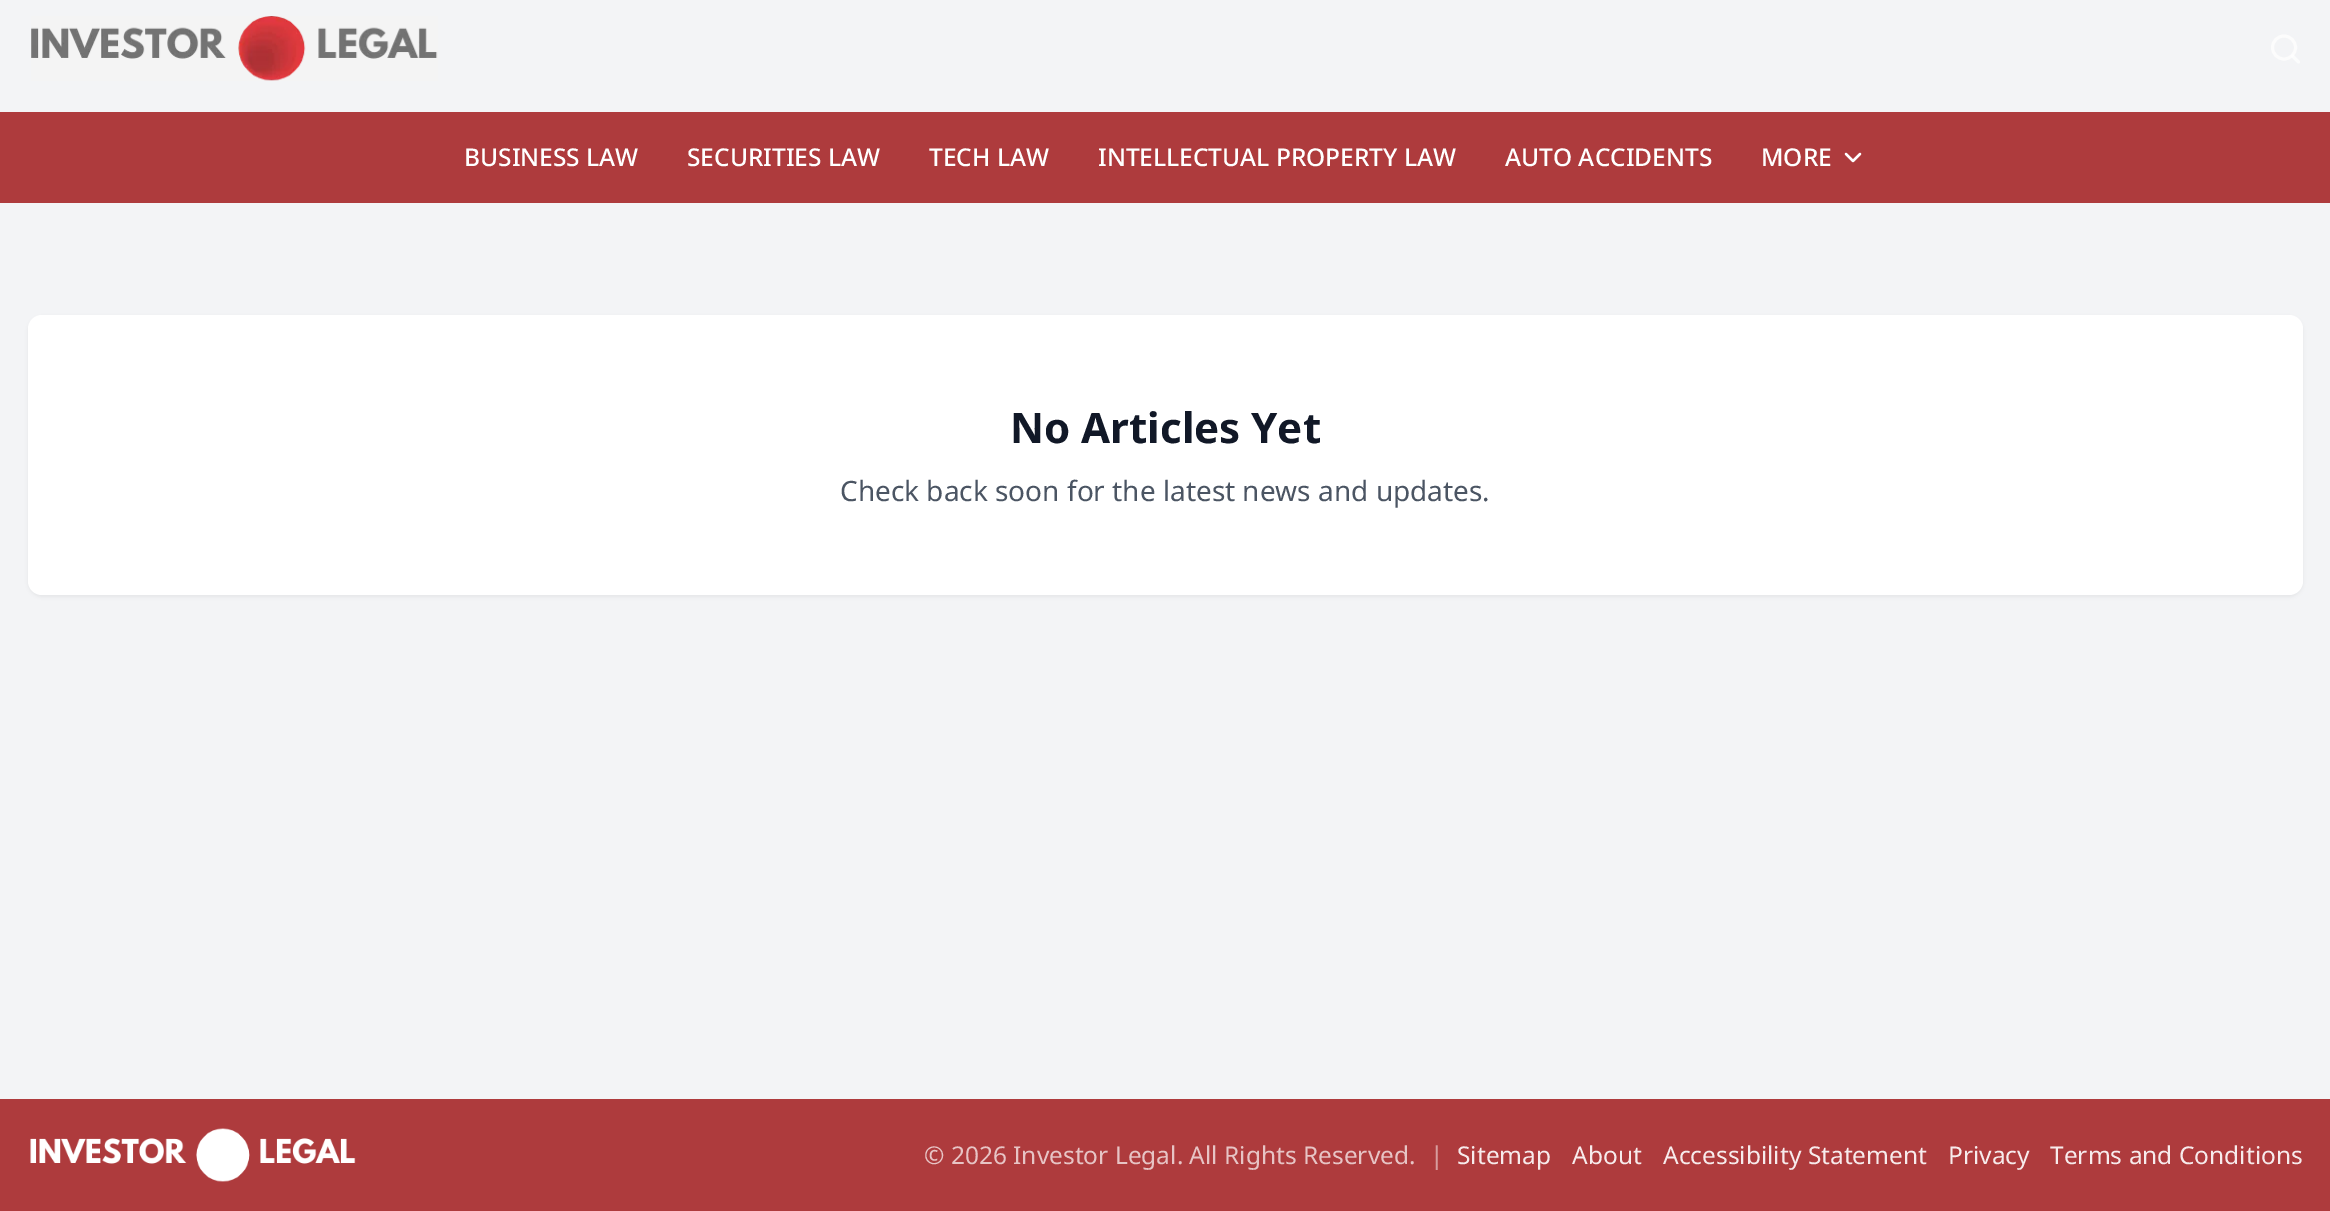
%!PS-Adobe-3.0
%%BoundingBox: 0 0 2330 1211
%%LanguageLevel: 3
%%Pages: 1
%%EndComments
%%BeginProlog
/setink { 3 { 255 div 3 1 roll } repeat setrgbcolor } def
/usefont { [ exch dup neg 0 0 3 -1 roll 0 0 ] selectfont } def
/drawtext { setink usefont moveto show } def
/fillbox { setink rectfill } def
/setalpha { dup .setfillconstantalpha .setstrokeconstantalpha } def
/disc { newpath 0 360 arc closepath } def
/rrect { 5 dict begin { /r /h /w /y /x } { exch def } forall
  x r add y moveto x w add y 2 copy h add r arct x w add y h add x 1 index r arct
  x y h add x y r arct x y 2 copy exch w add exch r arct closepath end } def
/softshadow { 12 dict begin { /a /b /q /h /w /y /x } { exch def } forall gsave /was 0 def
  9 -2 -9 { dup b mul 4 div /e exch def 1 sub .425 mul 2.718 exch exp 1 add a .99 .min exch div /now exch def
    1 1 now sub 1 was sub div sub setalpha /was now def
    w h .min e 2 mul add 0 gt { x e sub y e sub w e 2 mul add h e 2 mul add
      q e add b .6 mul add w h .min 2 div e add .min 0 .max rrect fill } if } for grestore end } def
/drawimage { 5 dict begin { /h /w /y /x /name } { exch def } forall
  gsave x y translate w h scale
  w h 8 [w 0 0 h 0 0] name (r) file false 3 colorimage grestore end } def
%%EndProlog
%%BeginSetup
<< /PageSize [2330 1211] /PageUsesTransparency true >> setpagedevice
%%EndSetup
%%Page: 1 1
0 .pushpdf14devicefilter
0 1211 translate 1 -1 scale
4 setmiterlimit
0 0 2330 1211 243 244 246 fillbox
(assets/img1.rgb) 31 16 407 65 drawimage
252 252 252 setink
2.9 setlinewidth
2284 47.5 11.5 disc stroke
0.7 setalpha
255 255 255 setink
1 setlinecap
1 setlinejoin
2298.5 62 moveto 2292.5 56 lineto stroke
1 setalpha
0 112 2330 91 174 59 61 fillbox
(BUSINESS LAW) 464 166 /NotoSans-Medium 24.5 255 255 255 drawtext
(SECURITIES LAW) 687 166 /NotoSans-Medium 24.5 255 255 255 drawtext
(TECH LAW) 929 166 /NotoSans-Medium 24.5 255 255 255 drawtext
(INTELLECTUAL PROPERTY LAW) 1098 166 /NotoSans-Medium 24.5 255 255 255 drawtext
(AUTO ACCIDENTS) 1505 166 /NotoSans-Medium 24.5 255 255 255 drawtext
(MORE) 1761 166 /NotoSans-Medium 24.5 255 255 255 drawtext
2.3 setlinewidth
1846 154 moveto 1853 161 lineto 1860 154 lineto stroke
0 0 0 setink
28 317 2275 280 14 2 0.05 softshadow
255 255 255 setink
28 315 2275 280 14 rrect fill
(No Articles Yet) 1010 443 /NotoSans-Bold 42 17 24 39 drawtext
(Check back soon for the latest news and updates.) 840 501 /NotoSans-Regular 28 75 85 99 drawtext
0 1099 2330 112 174 59 61 fillbox
(assets/img2.rgb) 30 1128 326 54 drawimage
(© 2026 Investor Legal. All Rights Reserved.) 924 1164 /NotoSans-Regular 24.5 231 196 197 drawtext
(|) 1430 1164 /NotoSans-Regular 24.5 215 157 158 drawtext
(Sitemap) 1457 1164 /NotoSans-Regular 24.5 247 235 236 drawtext
(About) 1572 1164 /NotoSans-Regular 24.5 247 235 236 drawtext
(Accessibility Statement) 1663 1164 /NotoSans-Regular 24.5 247 235 236 drawtext
(Privacy) 1948 1164 /NotoSans-Regular 24.5 247 235 236 drawtext
(Terms and Conditions) 2050 1164 /NotoSans-Regular 24.5 247 235 236 drawtext
.poppdf14devicefilter showpage
%%EOF
